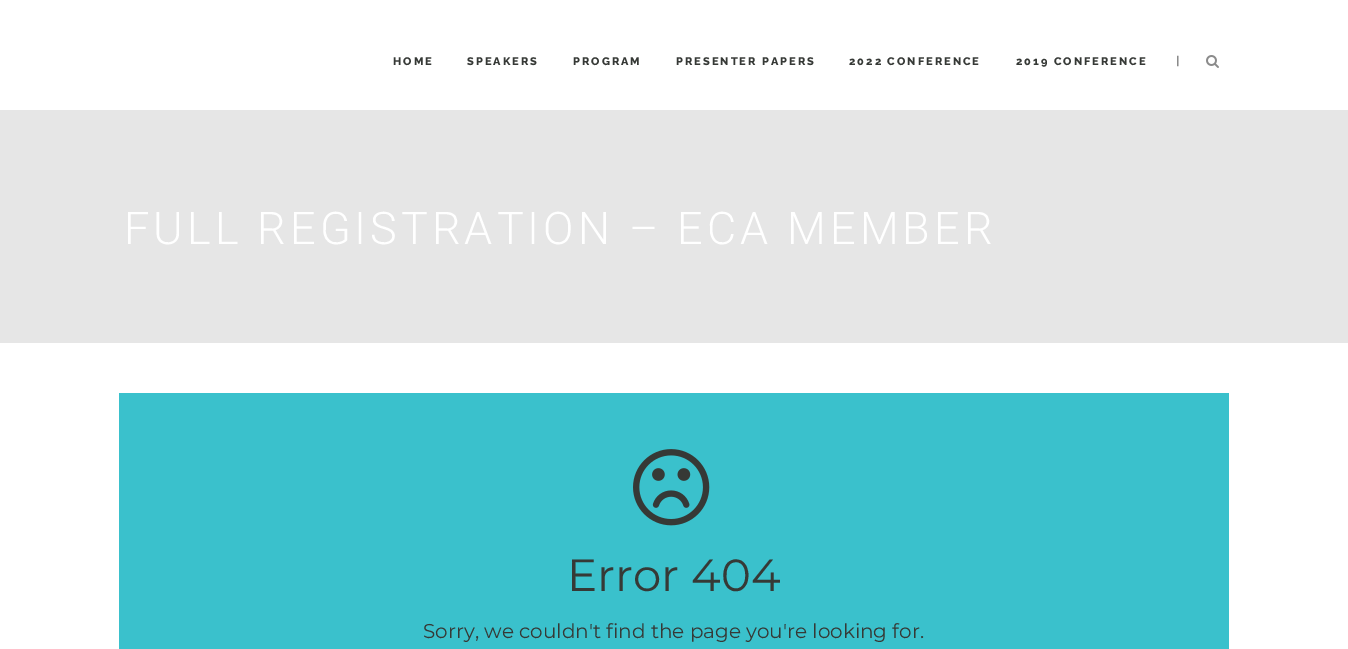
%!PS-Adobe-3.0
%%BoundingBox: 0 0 1348 649
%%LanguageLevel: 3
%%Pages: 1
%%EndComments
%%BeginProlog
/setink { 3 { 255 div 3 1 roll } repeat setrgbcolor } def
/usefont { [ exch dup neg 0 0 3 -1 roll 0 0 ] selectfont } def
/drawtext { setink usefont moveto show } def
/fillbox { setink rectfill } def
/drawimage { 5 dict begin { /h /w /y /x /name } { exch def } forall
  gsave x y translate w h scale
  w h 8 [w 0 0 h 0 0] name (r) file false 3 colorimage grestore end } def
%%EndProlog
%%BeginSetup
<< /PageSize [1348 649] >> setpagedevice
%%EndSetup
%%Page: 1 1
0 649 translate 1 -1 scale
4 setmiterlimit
0 0 1348 649 255 255 255 fillbox
/Raleway-ExtraBold 11 usefont
54 57 54 setink
393 65 moveto 2 0 (HOME) ashow
467 65 moveto 2 0 (SPEAKERS) ashow
573 65 moveto 2 0 (PROGRAM) ashow
676 65 moveto 2 0 (PRESENTER PAPERS) ashow
849 65 moveto 2 0 (2022 CONFERENCE) ashow
1016 65 moveto 2 0 (2019 CONFERENCE) ashow
(|) 1176 64 /Montserrat-Bold 11 139 139 139 drawtext
(assets/img1.rgb) 1206 55 13 13 drawimage
0 110 1348 233 230 230 230 fillbox
/Roboto-Light 45 usefont
255 255 255 setink
124 244 moveto 4 0 (FULL REGISTRATION – ECA MEMBER) ashow
119 393 1110 256 58 193 204 fillbox
(assets/img2.rgb) 633 449 77 77 drawimage
(Error 404) 567 591 /Montserrat-Regular 45 54 57 54 drawtext
(Sorry, we couldn't find the page you're looking for.) 423 638 /Montserrat-Regular 20 54 57 54 drawtext
showpage
%%EOF
